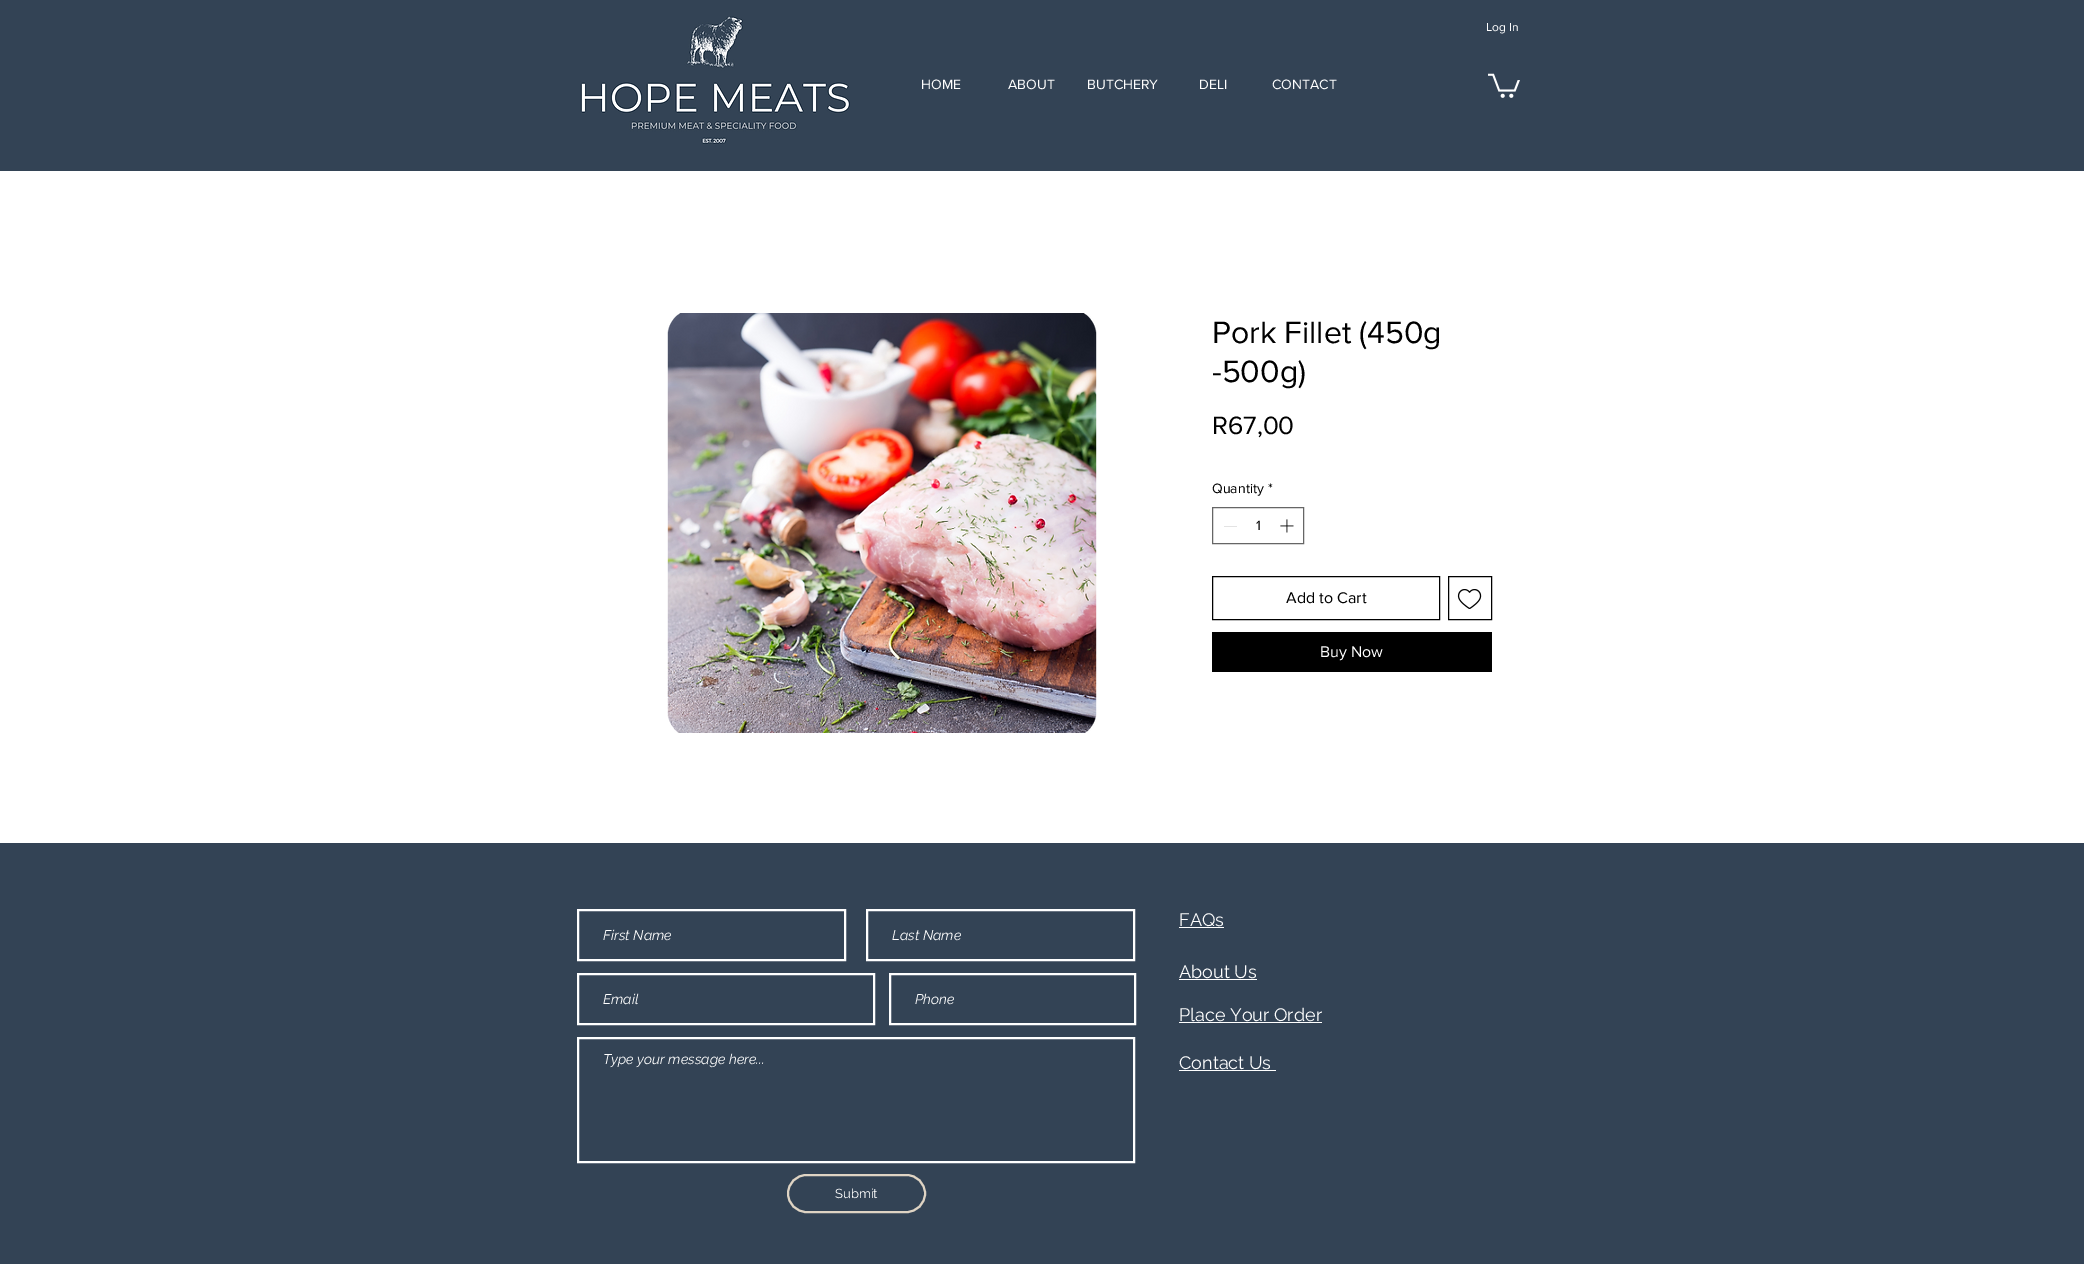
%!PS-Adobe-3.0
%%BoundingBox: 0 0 2084 1264
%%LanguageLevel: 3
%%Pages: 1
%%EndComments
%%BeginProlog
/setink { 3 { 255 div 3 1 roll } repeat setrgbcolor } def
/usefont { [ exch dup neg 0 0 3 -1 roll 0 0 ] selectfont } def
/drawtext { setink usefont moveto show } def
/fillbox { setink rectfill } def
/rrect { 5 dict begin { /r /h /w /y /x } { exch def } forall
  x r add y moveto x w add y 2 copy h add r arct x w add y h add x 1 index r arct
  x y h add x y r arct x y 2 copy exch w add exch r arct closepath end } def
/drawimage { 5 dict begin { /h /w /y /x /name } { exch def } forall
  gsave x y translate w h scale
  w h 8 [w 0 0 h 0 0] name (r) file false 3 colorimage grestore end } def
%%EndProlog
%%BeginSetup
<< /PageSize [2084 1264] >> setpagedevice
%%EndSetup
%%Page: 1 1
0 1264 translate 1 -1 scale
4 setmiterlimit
0 0 2084 1264 255 255 255 fillbox
0 0 2084 171 51 67 85 fillbox
(assets/img1.rgb) 580 16 270 129 drawimage
(Log In) 1486 31 /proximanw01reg-Regular 12 255 255 255 drawtext
(HOME) 921 89 /proximanw01reg-Regular 14 255 255 255 drawtext
(ABOUT) 1008 89 /proximanw01reg-Regular 14 255 255 255 drawtext
(BUTCHERY) 1087 89 /proximanw01reg-Regular 14 255 255 255 drawtext
(DELI) 1199 89 /proximanw01reg-Regular 14 255 255 255 drawtext
(CONTACT) 1272 89 /proximanw01reg-Regular 14 255 255 255 drawtext
(assets/img2.rgb) 1488 73 32 25 drawimage
(assets/img3.rgb) 667 313 430 420 drawimage
(Pork Fillet \(450g) 1212 343 /proximanw01reg-Regular 32 0 0 0 drawtext
(-500g\)) 1212 382 /proximanw01reg-Regular 32 0 0 0 drawtext
(R67,00) 1212 434 /proximanw01reg-Regular 26 0 0 0 drawtext
(Quantity) 1212 493 /proximanw01reg-Regular 14 0 0 0 drawtext
(*) 1268 493 /proximanw01reg-Regular 14 0 0 0 drawtext
102 102 102 setink
1212.5 507.5 91 36 rectstroke
1224 526 13 1 227 227 227 fillbox
(1) 1256 530 /proximanw01reg-Regular 14 0 0 0 drawtext
(assets/img4.rgb) 1280 519 14 14 drawimage
1212.5 576.5 227 43 rectstroke
(Add to Cart) 1286 603 /proximanw01reg-Regular 16 0 0 0 drawtext
1448.5 576.5 43 43 rectstroke
(assets/img5.rgb) 1457 589 25 20 drawimage
1212 632 280 40 0 0 0 fillbox
(Buy Now) 1320 657 /proximanw01reg-Regular 16 255 255 255 drawtext
0 843 2084 421 51 67 85 fillbox
(FAQs) 1179 926 /Raleway-Regular 18 255 255 255 drawtext
1179 927 45 1 255 255 255 fillbox
2 setlinewidth
578 910 267 50 rectstroke
(First Name) 603 940 /Raleway-Italic 14 255 255 255 drawtext
867 910 267 50 rectstroke
(Last Name) 892 940 /Raleway-Italic 14 255 255 255 drawtext
578 974 296 50 rectstroke
(Email) 603 1004 /Raleway-Italic 14 255 255 255 drawtext
890 974 245 50 rectstroke
(Phone) 915 1004 /Raleway-Italic 14 255 255 255 drawtext
578 1038 556 124 rectstroke
(Type your message here...) 603 1064 /Raleway-Italic 14 255 255 255 drawtext
223 212 196 setink
788 1175 137 37 18.5 rrect stroke
(Submit) 835 1198 /Raleway-Regular 13 255 255 255 drawtext
(About Us) 1179 978 /Raleway-Regular 18 255 255 255 drawtext
1179 979 78 1 255 255 255 fillbox
(Place Your Order) 1179 1021 /Raleway-Regular 18 255 255 255 drawtext
1179 1022 143 1 255 255 255 fillbox
(Contact Us) 1179 1069 /Raleway-Regular 18 255 255 255 drawtext
1179 1070 97 1 255 255 255 fillbox
showpage
%%EOF
